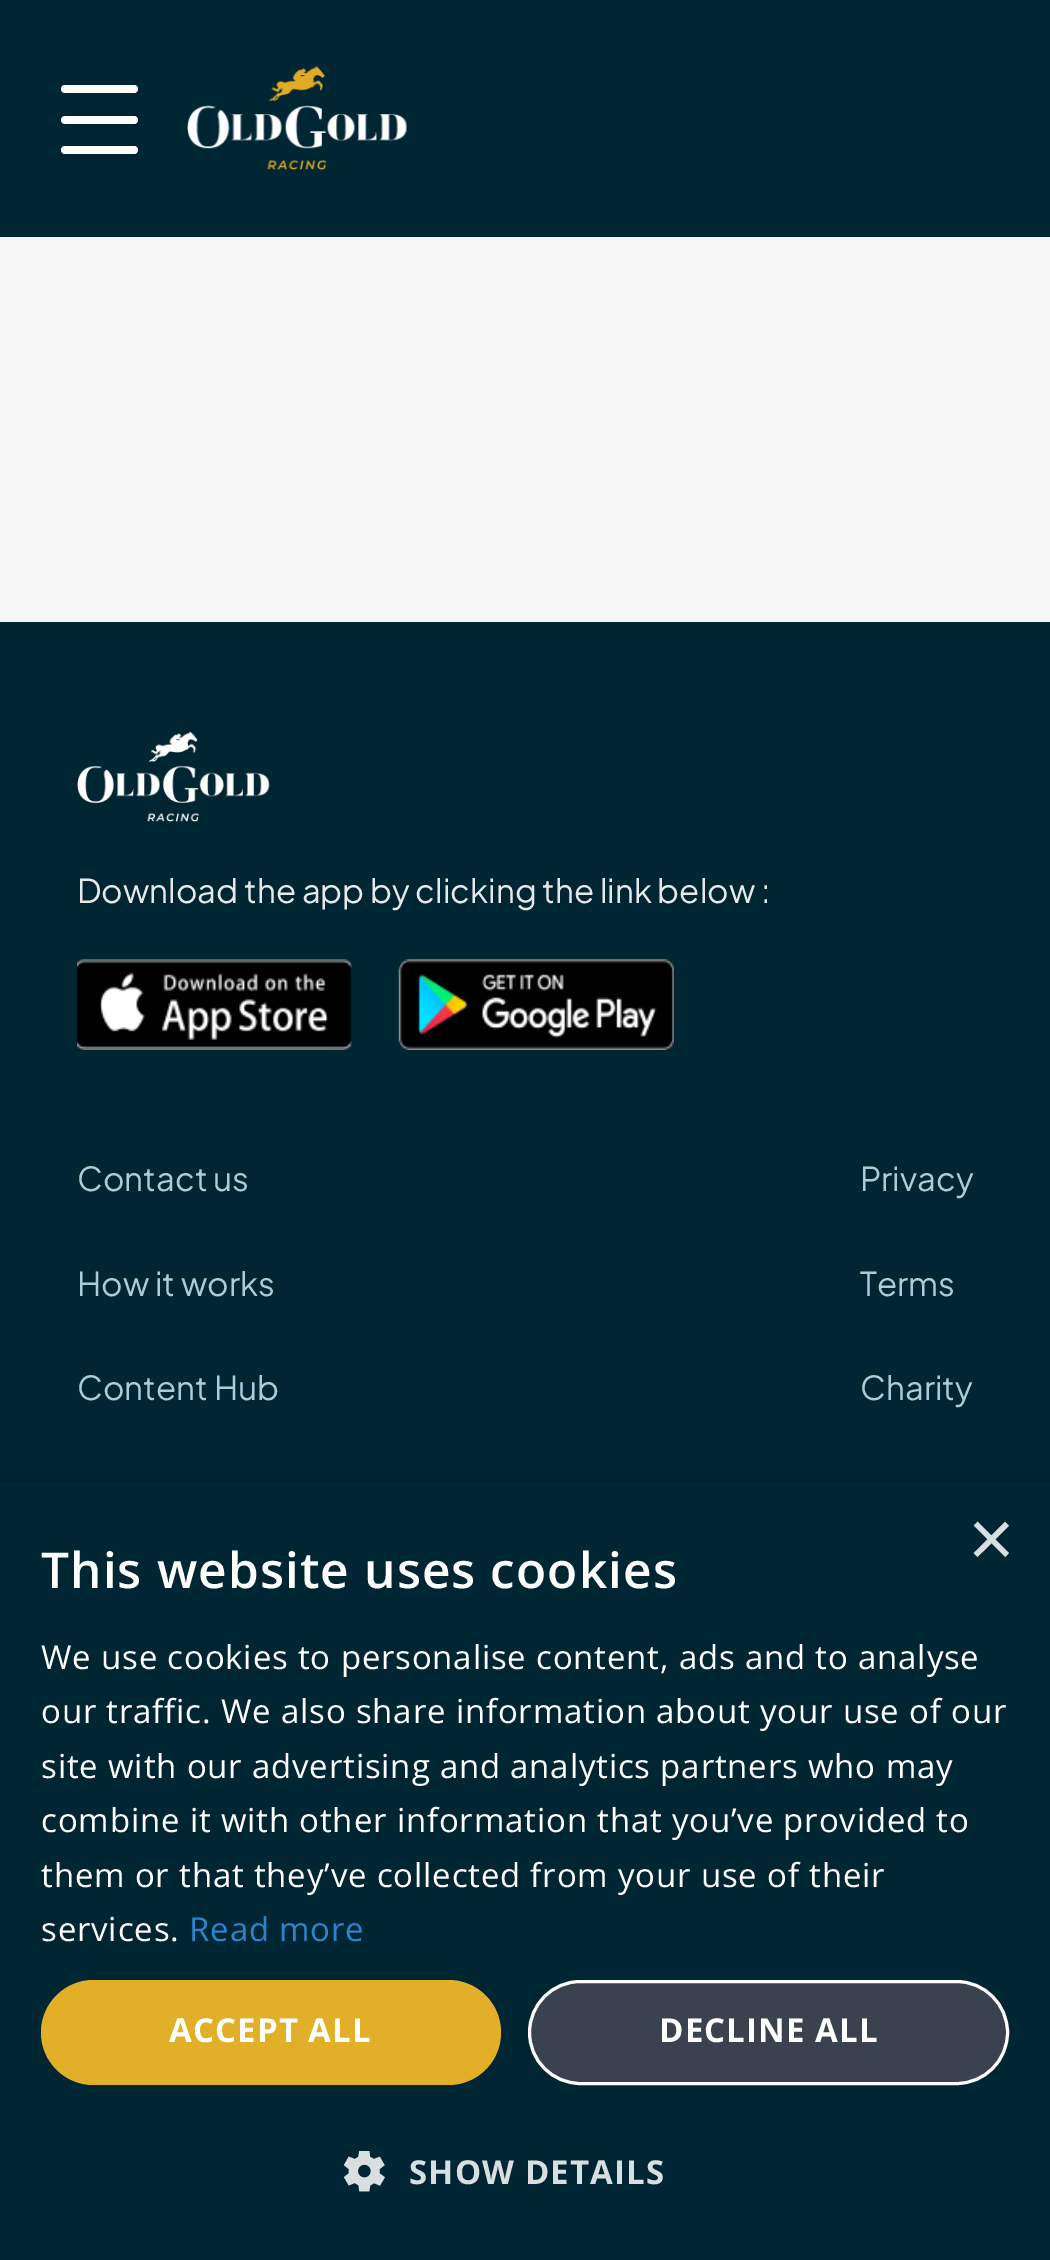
%!PS-Adobe-3.0
%%BoundingBox: 0 0 1050 2260
%%LanguageLevel: 3
%%Pages: 1
%%EndComments
%%BeginProlog
/setink { 3 { 255 div 3 1 roll } repeat setrgbcolor } def
/usefont { [ exch dup neg 0 0 3 -1 roll 0 0 ] selectfont } def
/drawtext { setink usefont moveto show } def
/fillbox { setink rectfill } def
/setalpha { dup .setfillconstantalpha .setstrokeconstantalpha } def
/rrect { 5 dict begin { /r /h /w /y /x } { exch def } forall
  x r add y moveto x w add y 2 copy h add r arct x w add y h add x 1 index r arct
  x y h add x y r arct x y 2 copy exch w add exch r arct closepath end } def
/softshadow { 12 dict begin { /a /b /q /h /w /y /x } { exch def } forall gsave /was 0 def
  9 -2 -9 { dup b mul 4 div /e exch def 1 sub .425 mul 2.718 exch exp 1 add a .99 .min exch div /now exch def
    1 1 now sub 1 was sub div sub setalpha /was now def
    w h .min e 2 mul add 0 gt { x e sub y e sub w e 2 mul add h e 2 mul add
      q e add b .6 mul add w h .min 2 div e add .min 0 .max rrect fill } if } for grestore end } def
/drawimage { 5 dict begin { /h /w /y /x /name } { exch def } forall
  gsave x y translate w h scale
  w h 8 [w 0 0 h 0 0] name (r) file false 3 colorimage grestore end } def
%%EndProlog
%%BeginSetup
<< /PageSize [1050 2260] /PageUsesTransparency true >> setpagedevice
%%EndSetup
%%Page: 1 1
0 .pushpdf14devicefilter
0 2260 translate 1 -1 scale
4 setmiterlimit
0 0 1050 2260 246 246 246 fillbox
0 0 1050 237 0 37 51 fillbox
255 255 255 setink
61 85 77 8 4 rrect fill
61 116 77 8 4 rrect fill
61 146 77 8 4 rrect fill
(assets/img1.rgb) 187 66 220 104 drawimage
0 622 1050 860 0 37 51 fillbox
(assets/img2.rgb) 77 731 193 91 drawimage
(Download the app by clicking the link below :) 77 903 /PlusJakartaSans-Regular 33 231 232 233 drawtext
(assets/img3.rgb) 77 959 275 91 drawimage
(assets/img4.rgb) 398 959 276 91 drawimage
(Contact us) 77 1191 /PlusJakartaSans-Regular 33 168 205 221 drawtext
(How it works) 77 1296 /PlusJakartaSans-Regular 33 168 205 221 drawtext
(Content Hub) 77 1400 /PlusJakartaSans-Regular 33 168 205 221 drawtext
(Privacy) 860 1191 /PlusJakartaSans-Regular 33 168 205 221 drawtext
(Terms) 860 1296 /PlusJakartaSans-Regular 33 168 205 221 drawtext
(Charity) 860 1400 /PlusJakartaSans-Regular 33 168 205 221 drawtext
0 0 0 setink
3 1488 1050 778 0 11 0.35 softshadow
0 1482 1050 778 0 37 51 fillbox
(×) 968 1566 /LiberationSans-Regular 80 217 222 224 drawtext
/OpenSans-SemiBold 49.5 usefont
255 255 255 setink
41 1588 moveto 1.1 0 (This website uses cookies) ashow
/OpenSans-Regular 33 usefont
41 1669 moveto 0.82 0 (We use cookies to personalise content, ads and to analyse) ashow
41 1723 moveto 0.82 0 (our traffic. We also share information about your use of our) ashow
41 1778 moveto 0.82 0 (site with our advertising and analytics partners who may) ashow
41 1832 moveto 0.82 0 (combine it with other information that you’ve provided to) ashow
41 1887 moveto 0.82 0 (them or that they’ve collected from your use of their) ashow
41 1941 moveto 0.82 0 (services.) ashow
41 134 204 setink
189 1941 moveto 0.82 0 (Read more) ashow
225 175 40 setink
41 1980 460 105 52.5 rrect fill
/OpenSans-Bold 33 usefont
255 255 255 setink
169 2042 moveto 1.1 0 (ACCEPT ALL) ashow
58 66 80 setink
529.5 1981.5 478 102 51 rrect gsave fill grestore
255 255 255 setink
3 setlinewidth
stroke
659 2042 moveto 1.1 0 (DECLINE ALL) ashow
(assets/img5.rgb) 344 2151 41 41 drawimage
217 222 224 setink
409 2184 moveto 1.1 0 (SHOW DETAILS) ashow
.poppdf14devicefilter showpage
%%EOF
